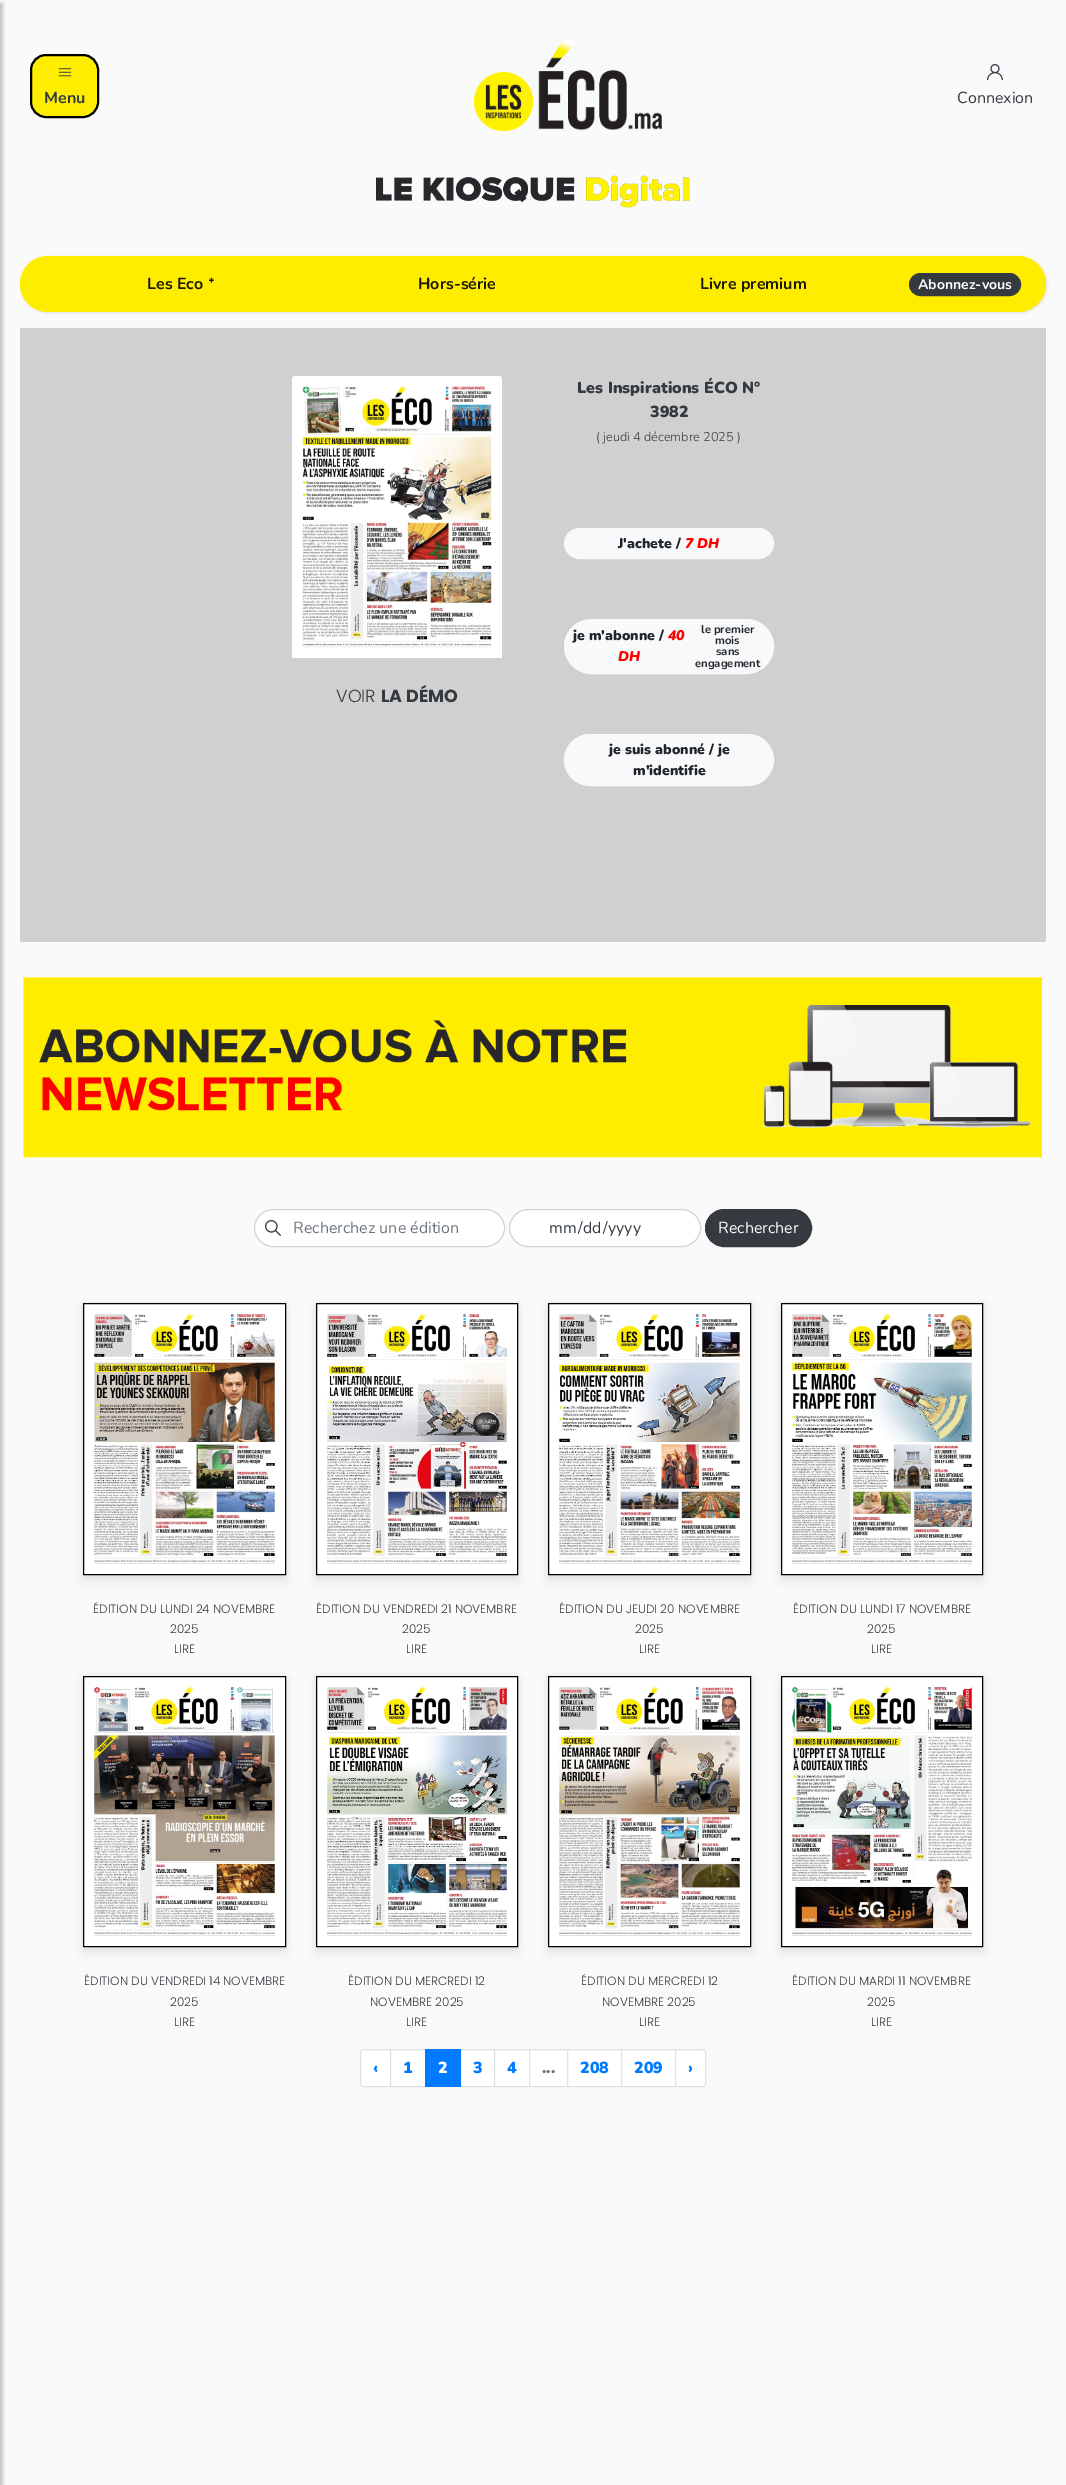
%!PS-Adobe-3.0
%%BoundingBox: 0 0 1066 2485
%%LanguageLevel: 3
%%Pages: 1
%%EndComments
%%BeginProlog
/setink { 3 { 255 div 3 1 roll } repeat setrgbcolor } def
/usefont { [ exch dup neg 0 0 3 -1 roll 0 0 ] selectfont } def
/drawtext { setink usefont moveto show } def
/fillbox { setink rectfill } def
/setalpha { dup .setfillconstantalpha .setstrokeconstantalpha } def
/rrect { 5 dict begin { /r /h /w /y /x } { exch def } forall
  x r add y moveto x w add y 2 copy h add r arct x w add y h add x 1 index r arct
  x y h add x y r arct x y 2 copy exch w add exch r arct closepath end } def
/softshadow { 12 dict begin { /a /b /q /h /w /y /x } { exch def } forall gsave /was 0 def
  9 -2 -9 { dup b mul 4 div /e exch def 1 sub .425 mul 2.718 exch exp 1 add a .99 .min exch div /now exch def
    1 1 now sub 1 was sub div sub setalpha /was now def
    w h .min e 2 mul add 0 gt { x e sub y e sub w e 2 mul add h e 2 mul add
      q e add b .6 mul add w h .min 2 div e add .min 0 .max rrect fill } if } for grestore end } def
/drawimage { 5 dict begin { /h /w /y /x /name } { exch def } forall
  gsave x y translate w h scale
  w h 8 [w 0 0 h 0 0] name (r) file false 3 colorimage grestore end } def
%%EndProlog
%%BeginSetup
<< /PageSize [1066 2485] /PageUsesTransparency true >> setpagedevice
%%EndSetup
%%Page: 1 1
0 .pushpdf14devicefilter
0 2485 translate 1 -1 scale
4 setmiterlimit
0 0 1066 2485 250 250 250 fillbox
0 0 0 setink
-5 3 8 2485 0 1.5 0.2 softshadow
255 237 0 setink
31 55 67 62 15 rrect gsave fill grestore
0 0 0 setink
2 setlinewidth
stroke
(assets/img1.rgb) 58 68 14 9 drawimage
(Menu) 44 103 /Nunito-Bold 16 52 58 64 drawtext
(assets/img2.rgb) 474 40 188 91 drawimage
(assets/img3.rgb) 987 64 16 16 drawimage
(Connexion) 957 103 /Nunito-Regular 16 52 58 64 drawtext
(assets/img4.rgb) 376 175 314 33 drawimage
0 0 0 setink
21 257 1026 56 28 1.5 0.1 softshadow
255 237 0 setink
20 256 1026 56 28 rrect fill
(Les Eco) 147 289 /Nunito-Bold 16 26 24 0 drawtext
(ᐩ) 208 289 /DejaVuSans-Bold 16 26 24 0 drawtext
(Hors-série) 418 289 /Nunito-Bold 16 26 24 0 drawtext
(Livre premium) 700 289 /Nunito-Bold 16 26 24 0 drawtext
52 58 64 setink
909.5 273.5 111 22 11 rrect gsave fill grestore
1 setlinewidth
stroke
(Abonnez-vous) 918 289 /Nunito-Bold 14 255 255 255 drawtext
20 328 1026 614 208 208 208 fillbox
(assets/img5.rgb) 292 376 210 282 drawimage
(VOIR) 336 702 /Poppins-Light 17.5 52 58 64 drawtext
(LA DÉMO) 381 702 /Poppins-Bold 17.5 52 58 64 drawtext
(Les Inspirations ÉCO N°) 577 393 /Nunito-Black 16 52 58 64 drawtext
(3982) 650 417 /Nunito-Black 16 52 58 64 drawtext
(\( jeudi 4 décembre 2025 \)) 596 441 /Nunito-Light 12.75 52 58 64 drawtext
248 249 250 setink
564.5 528.5 209 30 15 rrect gsave fill grestore
stroke
(J'achete /) 618 548 /Nunito-Black 14 33 37 41 drawtext
(7 DH) 685 548 /Nunito-BlackItalic 14 255 0 0 drawtext
248 249 250 setink
564.5 619.5 209 54 27 rrect gsave fill grestore
stroke
(je m'abonne /) 573 640 /Nunito-Black 14 33 37 41 drawtext
(40) 668 640 /Nunito-BlackItalic 14 255 0 0 drawtext
(DH) 618 661 /Nunito-BlackItalic 14 255 0 0 drawtext
(le premier) 701 633 /Nunito-Bold 11.25 33 37 41 drawtext
(mois) 715 644 /Nunito-Bold 11.25 33 37 41 drawtext
(sans) 716 655 /Nunito-Bold 11.25 33 37 41 drawtext
(engagement) 695 667 /Nunito-Bold 11.25 33 37 41 drawtext
248 249 250 setink
564.5 734.5 209 51 25.5 rrect gsave fill grestore
stroke
(je suis abonné / je) 609 754 /Nunito-Black 14 33 37 41 drawtext
(m'identifie) 633 775 /Nunito-Black 14 33 37 41 drawtext
(assets/img6.rgb) 23 977 1019 181 drawimage
255 255 255 setink
254.5 1209.5 250 37 18.5 rrect gsave fill grestore
206 212 218 setink
stroke
(assets/img7.rgb) 265 1220 16 16 drawimage
(Recherchez une édition) 293 1233 /Nunito-Regular 16 108 117 125 drawtext
255 255 255 setink
509.5 1209.5 191 37 18.5 rrect gsave fill grestore
206 212 218 setink
stroke
(mm) 549 1233 /Nunito-Regular 16 52 58 64 drawtext
(/) 578 1233 /Nunito-Regular 16 52 58 64 drawtext
(dd) 583 1233 /Nunito-Regular 16 52 58 64 drawtext
(/) 603 1233 /Nunito-Regular 16 52 58 64 drawtext
(yyyy) 608 1233 /Nunito-Regular 16 52 58 64 drawtext
705.5 1209.5 106 37 18.5 rrect gsave fill grestore
stroke
(Rechercher) 718 1233 /Nunito-Regular 16 255 255 255 drawtext
0 0 0 setink
83 1303 203 272 0 3 0.05 softshadow
83 1309 203 272 0 5 0.08 softshadow
255 255 255 setink
83.5 1303.5 moveto 285.5 1303.5 lineto 285.5 1574.5 lineto 83.5 1574.5 lineto closepath gsave fill grestore
0 0 0 setink
stroke
(assets/img8.rgb) 94 1313 182 251 drawimage
(ÉDITION DU LUNDI 24 NOVEMBRE) 93 1613 /Poppins-Light 12 52 58 64 drawtext
(2025) 170 1633 /Poppins-Light 12 52 58 64 drawtext
(LIRE) 174 1653 /Poppins-Light 12 52 58 64 drawtext
0 0 0 setink
316 1303 202 272 0 3 0.05 softshadow
316 1309 202 272 0 5 0.08 softshadow
255 255 255 setink
316.5 1303.5 moveto 517.5 1303.5 lineto 517.5 1574.5 lineto 316.5 1574.5 lineto closepath gsave fill grestore
0 0 0 setink
stroke
(assets/img9.rgb) 327 1313 180 251 drawimage
(ÉDITION DU VENDREDI 21 NOVEMBRE) 316 1613 /Poppins-Light 12 52 58 64 drawtext
(2025) 402 1633 /Poppins-Light 12 52 58 64 drawtext
(LIRE) 406 1653 /Poppins-Light 12 52 58 64 drawtext
0 0 0 setink
548 1303 203 272 0 3 0.05 softshadow
548 1309 203 272 0 5 0.08 softshadow
255 255 255 setink
548.5 1303.5 moveto 750.5 1303.5 lineto 750.5 1574.5 lineto 548.5 1574.5 lineto closepath gsave fill grestore
0 0 0 setink
stroke
(assets/img10.rgb) 558 1313 182 251 drawimage
(ÉDITION DU JEUDI 20 NOVEMBRE) 559 1613 /Poppins-Light 12 52 58 64 drawtext
(2025) 635 1633 /Poppins-Light 12 52 58 64 drawtext
(LIRE) 639 1653 /Poppins-Light 12 52 58 64 drawtext
0 0 0 setink
781 1303 202 272 0 3 0.05 softshadow
781 1309 202 272 0 5 0.08 softshadow
255 255 255 setink
781.5 1303.5 moveto 982.5 1303.5 lineto 982.5 1574.5 lineto 781.5 1574.5 lineto closepath gsave fill grestore
0 0 0 setink
stroke
(assets/img11.rgb) 791 1313 182 251 drawimage
(ÉDITION DU LUNDI 17 NOVEMBRE) 793 1613 /Poppins-Light 12 52 58 64 drawtext
(2025) 867 1633 /Poppins-Light 12 52 58 64 drawtext
(LIRE) 871 1653 /Poppins-Light 12 52 58 64 drawtext
0 0 0 setink
83 1676 203 271 0 3 0.05 softshadow
83 1682 203 271 0 5 0.08 softshadow
255 255 255 setink
83.5 1676.5 moveto 285.5 1676.5 lineto 285.5 1946.5 lineto 83.5 1946.5 lineto closepath gsave fill grestore
0 0 0 setink
stroke
(assets/img12.rgb) 93 1686 183 250 drawimage
(ÉDITION DU VENDREDI 14 NOVEMBRE) 84 1985 /Poppins-Light 12 52 58 64 drawtext
(2025) 170 2006 /Poppins-Light 12 52 58 64 drawtext
(LIRE) 174 2026 /Poppins-Light 12 52 58 64 drawtext
0 0 0 setink
316 1676 202 271 0 3 0.05 softshadow
316 1682 202 271 0 5 0.08 softshadow
255 255 255 setink
316.5 1676.5 moveto 517.5 1676.5 lineto 517.5 1946.5 lineto 316.5 1946.5 lineto closepath gsave fill grestore
0 0 0 setink
stroke
(assets/img13.rgb) 327 1686 181 250 drawimage
(ÉDITION DU MERCREDI 12) 348 1985 /Poppins-Light 12 52 58 64 drawtext
(NOVEMBRE 2025) 370 2006 /Poppins-Light 12 52 58 64 drawtext
(LIRE) 406 2026 /Poppins-Light 12 52 58 64 drawtext
0 0 0 setink
548 1676 203 271 0 3 0.05 softshadow
548 1682 203 271 0 5 0.08 softshadow
255 255 255 setink
548.5 1676.5 moveto 750.5 1676.5 lineto 750.5 1946.5 lineto 548.5 1946.5 lineto closepath gsave fill grestore
0 0 0 setink
stroke
(assets/img14.rgb) 559 1686 181 250 drawimage
(ÉDITION DU MERCREDI 12) 581 1985 /Poppins-Light 12 52 58 64 drawtext
(NOVEMBRE 2025) 602 2006 /Poppins-Light 12 52 58 64 drawtext
(LIRE) 639 2026 /Poppins-Light 12 52 58 64 drawtext
0 0 0 setink
781 1676 202 271 0 3 0.05 softshadow
781 1682 202 271 0 5 0.08 softshadow
255 255 255 setink
781.5 1676.5 moveto 982.5 1676.5 lineto 982.5 1946.5 lineto 781.5 1946.5 lineto closepath gsave fill grestore
0 0 0 setink
stroke
(assets/img15.rgb) 792 1686 181 250 drawimage
(ÉDITION DU MARDI 11 NOVEMBRE) 792 1985 /Poppins-Light 12 52 58 64 drawtext
(2025) 867 2006 /Poppins-Light 12 52 58 64 drawtext
(LIRE) 871 2026 /Poppins-Light 12 52 58 64 drawtext
255 255 255 setink
364 2049.5 moveto 390.5 2049.5 lineto 390.5 2086.5 lineto 364 2086.5 lineto 362 2086.5 360.5 2085 360.5 2083 curveto 360.5 2053 lineto 360.5 2051 362 2049.5 364 2049.5 curveto closepath gsave fill grestore
222 226 230 setink
stroke
(‹) 373 2073 /Nunito-Black 16 0 123 255 drawtext
255 255 255 setink
390.5 2049.5 moveto 425.5 2049.5 lineto 425.5 2086.5 lineto 390.5 2086.5 lineto closepath gsave fill grestore
222 226 230 setink
stroke
(1) 403 2073 /Nunito-Black 16 0 123 255 drawtext
255 255 255 setink
460.5 2049.5 moveto 494.5 2049.5 lineto 494.5 2086.5 lineto 460.5 2086.5 lineto closepath gsave fill grestore
222 226 230 setink
stroke
425 2049 36 38 0 123 255 fillbox
(2) 438 2073 /Nunito-Black 16 255 255 255 drawtext
(3) 473 2073 /Nunito-Black 16 0 123 255 drawtext
255 255 255 setink
494.5 2049.5 moveto 529.5 2049.5 lineto 529.5 2086.5 lineto 494.5 2086.5 lineto closepath gsave fill grestore
222 226 230 setink
stroke
(4) 507 2073 /Nunito-Black 16 0 123 255 drawtext
255 255 255 setink
529.5 2049.5 moveto 567.5 2049.5 lineto 567.5 2086.5 lineto 529.5 2086.5 lineto closepath gsave fill grestore
222 226 230 setink
stroke
(...) 542 2073 /Nunito-Black 16 108 117 125 drawtext
255 255 255 setink
567.5 2049.5 moveto 621.5 2049.5 lineto 621.5 2086.5 lineto 567.5 2086.5 lineto closepath gsave fill grestore
222 226 230 setink
stroke
(208) 580 2073 /Nunito-Black 16 0 123 255 drawtext
255 255 255 setink
621.5 2049.5 moveto 675.5 2049.5 lineto 675.5 2086.5 lineto 621.5 2086.5 lineto closepath gsave fill grestore
222 226 230 setink
stroke
(209) 634 2073 /Nunito-Black 16 0 123 255 drawtext
255 255 255 setink
675.5 2049.5 moveto 702 2049.5 lineto 704 2049.5 705.5 2051 705.5 2053 curveto 705.5 2083 lineto 705.5 2085 704 2086.5 702 2086.5 curveto 675.5 2086.5 lineto closepath gsave fill grestore
222 226 230 setink
stroke
(›) 688 2073 /Nunito-Black 16 0 123 255 drawtext
.poppdf14devicefilter showpage
%%EOF
